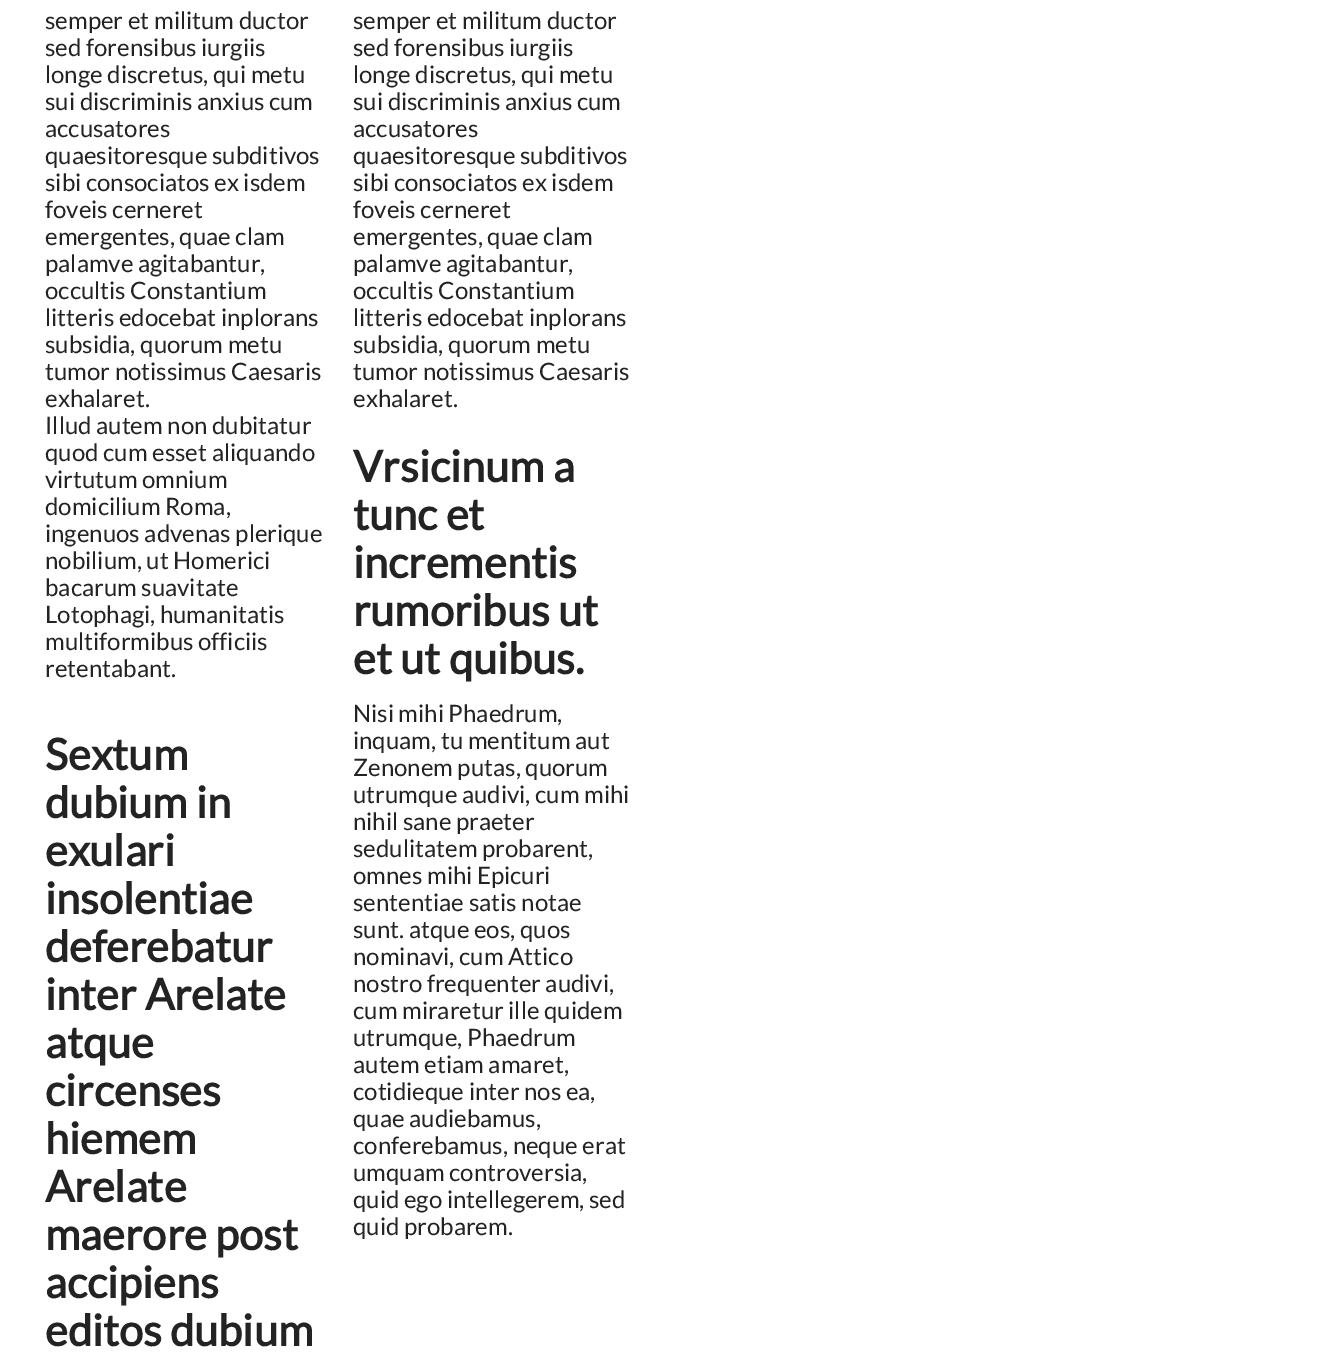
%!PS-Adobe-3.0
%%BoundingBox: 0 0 1320 1366
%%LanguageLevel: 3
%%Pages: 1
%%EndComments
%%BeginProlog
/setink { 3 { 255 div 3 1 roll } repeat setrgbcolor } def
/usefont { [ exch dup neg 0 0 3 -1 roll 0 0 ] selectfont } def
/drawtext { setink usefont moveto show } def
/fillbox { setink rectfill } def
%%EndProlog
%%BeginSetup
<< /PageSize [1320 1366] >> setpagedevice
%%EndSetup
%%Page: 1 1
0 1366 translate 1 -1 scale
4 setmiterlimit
0 0 1320 1366 255 255 255 fillbox
(semper et militum ductor) 45 29 /Lato-Regular 24 35 35 35 drawtext
(sed forensibus iurgiis) 45 56 /Lato-Regular 24 35 35 35 drawtext
(longe discretus, qui metu) 45 83 /Lato-Regular 24 35 35 35 drawtext
(sui discriminis anxius cum) 45 110 /Lato-Regular 24 35 35 35 drawtext
(accusatores) 45 137 /Lato-Regular 24 35 35 35 drawtext
(quaesitoresque subditivos) 45 164 /Lato-Regular 24 35 35 35 drawtext
(sibi consociatos ex isdem) 45 191 /Lato-Regular 24 35 35 35 drawtext
(foveis cerneret) 45 218 /Lato-Regular 24 35 35 35 drawtext
(emergentes, quae clam) 45 245 /Lato-Regular 24 35 35 35 drawtext
(palamve agitabantur,) 45 272 /Lato-Regular 24 35 35 35 drawtext
(occultis Constantium) 45 299 /Lato-Regular 24 35 35 35 drawtext
(litteris edocebat inplorans) 45 326 /Lato-Regular 24 35 35 35 drawtext
(subsidia, quorum metu) 45 353 /Lato-Regular 24 35 35 35 drawtext
(tumor notissimus Caesaris) 45 380 /Lato-Regular 24 35 35 35 drawtext
(exhalaret.) 45 407 /Lato-Regular 24 35 35 35 drawtext
(semper et militum ductor) 353 29 /Lato-Regular 24 35 35 35 drawtext
(sed forensibus iurgiis) 353 56 /Lato-Regular 24 35 35 35 drawtext
(longe discretus, qui metu) 353 83 /Lato-Regular 24 35 35 35 drawtext
(sui discriminis anxius cum) 353 110 /Lato-Regular 24 35 35 35 drawtext
(accusatores) 353 137 /Lato-Regular 24 35 35 35 drawtext
(quaesitoresque subditivos) 353 164 /Lato-Regular 24 35 35 35 drawtext
(sibi consociatos ex isdem) 353 191 /Lato-Regular 24 35 35 35 drawtext
(foveis cerneret) 353 218 /Lato-Regular 24 35 35 35 drawtext
(emergentes, quae clam) 353 245 /Lato-Regular 24 35 35 35 drawtext
(palamve agitabantur,) 353 272 /Lato-Regular 24 35 35 35 drawtext
(occultis Constantium) 353 299 /Lato-Regular 24 35 35 35 drawtext
(litteris edocebat inplorans) 353 326 /Lato-Regular 24 35 35 35 drawtext
(subsidia, quorum metu) 353 353 /Lato-Regular 24 35 35 35 drawtext
(tumor notissimus Caesaris) 353 380 /Lato-Regular 24 35 35 35 drawtext
(exhalaret.) 353 407 /Lato-Regular 24 35 35 35 drawtext
(Illud autem non dubitatur) 45 434 /Lato-Regular 24 35 35 35 drawtext
(quod cum esset aliquando) 45 461 /Lato-Regular 24 35 35 35 drawtext
(virtutum omnium) 45 488 /Lato-Regular 24 35 35 35 drawtext
(domicilium Roma,) 45 515 /Lato-Regular 24 35 35 35 drawtext
(ingenuos advenas plerique) 45 542 /Lato-Regular 24 35 35 35 drawtext
(nobilium, ut Homerici) 45 569 /Lato-Regular 24 35 35 35 drawtext
(bacarum suavitate) 45 596 /Lato-Regular 24 35 35 35 drawtext
(Lotophagi, humanitatis) 45 623 /Lato-Regular 24 35 35 35 drawtext
(multiformibus officiis) 45 650 /Lato-Regular 24 35 35 35 drawtext
(retentabant.) 45 677 /Lato-Regular 24 35 35 35 drawtext
(Vrsicinum a) 353 482 /Lato-Bold 43.25 35 35 35 drawtext
(tunc et) 353 530 /Lato-Bold 43.25 35 35 35 drawtext
(incrementis) 353 578 /Lato-Bold 43.25 35 35 35 drawtext
(rumoribus ut) 353 626 /Lato-Bold 43.25 35 35 35 drawtext
(et ut quibus.) 353 674 /Lato-Bold 43.25 35 35 35 drawtext
(Sextum) 45 770 /Lato-Bold 43.25 35 35 35 drawtext
(dubium in) 45 818 /Lato-Bold 43.25 35 35 35 drawtext
(exulari) 45 866 /Lato-Bold 43.25 35 35 35 drawtext
(insolentiae) 45 914 /Lato-Bold 43.25 35 35 35 drawtext
(deferebatur) 45 962 /Lato-Bold 43.25 35 35 35 drawtext
(inter Arelate) 45 1010 /Lato-Bold 43.25 35 35 35 drawtext
(atque) 45 1058 /Lato-Bold 43.25 35 35 35 drawtext
(circenses) 45 1106 /Lato-Bold 43.25 35 35 35 drawtext
(hiemem) 45 1154 /Lato-Bold 43.25 35 35 35 drawtext
(Arelate) 45 1202 /Lato-Bold 43.25 35 35 35 drawtext
(maerore post) 45 1250 /Lato-Bold 43.25 35 35 35 drawtext
(accipiens) 45 1298 /Lato-Bold 43.25 35 35 35 drawtext
(editos dubium) 45 1346 /Lato-Bold 43.25 35 35 35 drawtext
(Nisi mihi Phaedrum,) 353 722 /Lato-Regular 24 35 35 35 drawtext
(inquam, tu mentitum aut) 353 749 /Lato-Regular 24 35 35 35 drawtext
(Zenonem putas, quorum) 353 776 /Lato-Regular 24 35 35 35 drawtext
(utrumque audivi, cum mihi) 353 803 /Lato-Regular 24 35 35 35 drawtext
(nihil sane praeter) 353 830 /Lato-Regular 24 35 35 35 drawtext
(sedulitatem probarent,) 353 857 /Lato-Regular 24 35 35 35 drawtext
(omnes mihi Epicuri) 353 884 /Lato-Regular 24 35 35 35 drawtext
(sententiae satis notae) 353 911 /Lato-Regular 24 35 35 35 drawtext
(sunt. atque eos, quos) 353 938 /Lato-Regular 24 35 35 35 drawtext
(nominavi, cum Attico) 353 965 /Lato-Regular 24 35 35 35 drawtext
(nostro frequenter audivi,) 353 992 /Lato-Regular 24 35 35 35 drawtext
(cum miraretur ille quidem) 353 1019 /Lato-Regular 24 35 35 35 drawtext
(utrumque, Phaedrum) 353 1046 /Lato-Regular 24 35 35 35 drawtext
(autem etiam amaret,) 353 1073 /Lato-Regular 24 35 35 35 drawtext
(cotidieque inter nos ea,) 353 1100 /Lato-Regular 24 35 35 35 drawtext
(quae audiebamus,) 353 1127 /Lato-Regular 24 35 35 35 drawtext
(conferebamus, neque erat) 353 1154 /Lato-Regular 24 35 35 35 drawtext
(umquam controversia,) 353 1181 /Lato-Regular 24 35 35 35 drawtext
(quid ego intellegerem, sed) 353 1208 /Lato-Regular 24 35 35 35 drawtext
(quid probarem.) 353 1235 /Lato-Regular 24 35 35 35 drawtext
showpage
%%EOF
